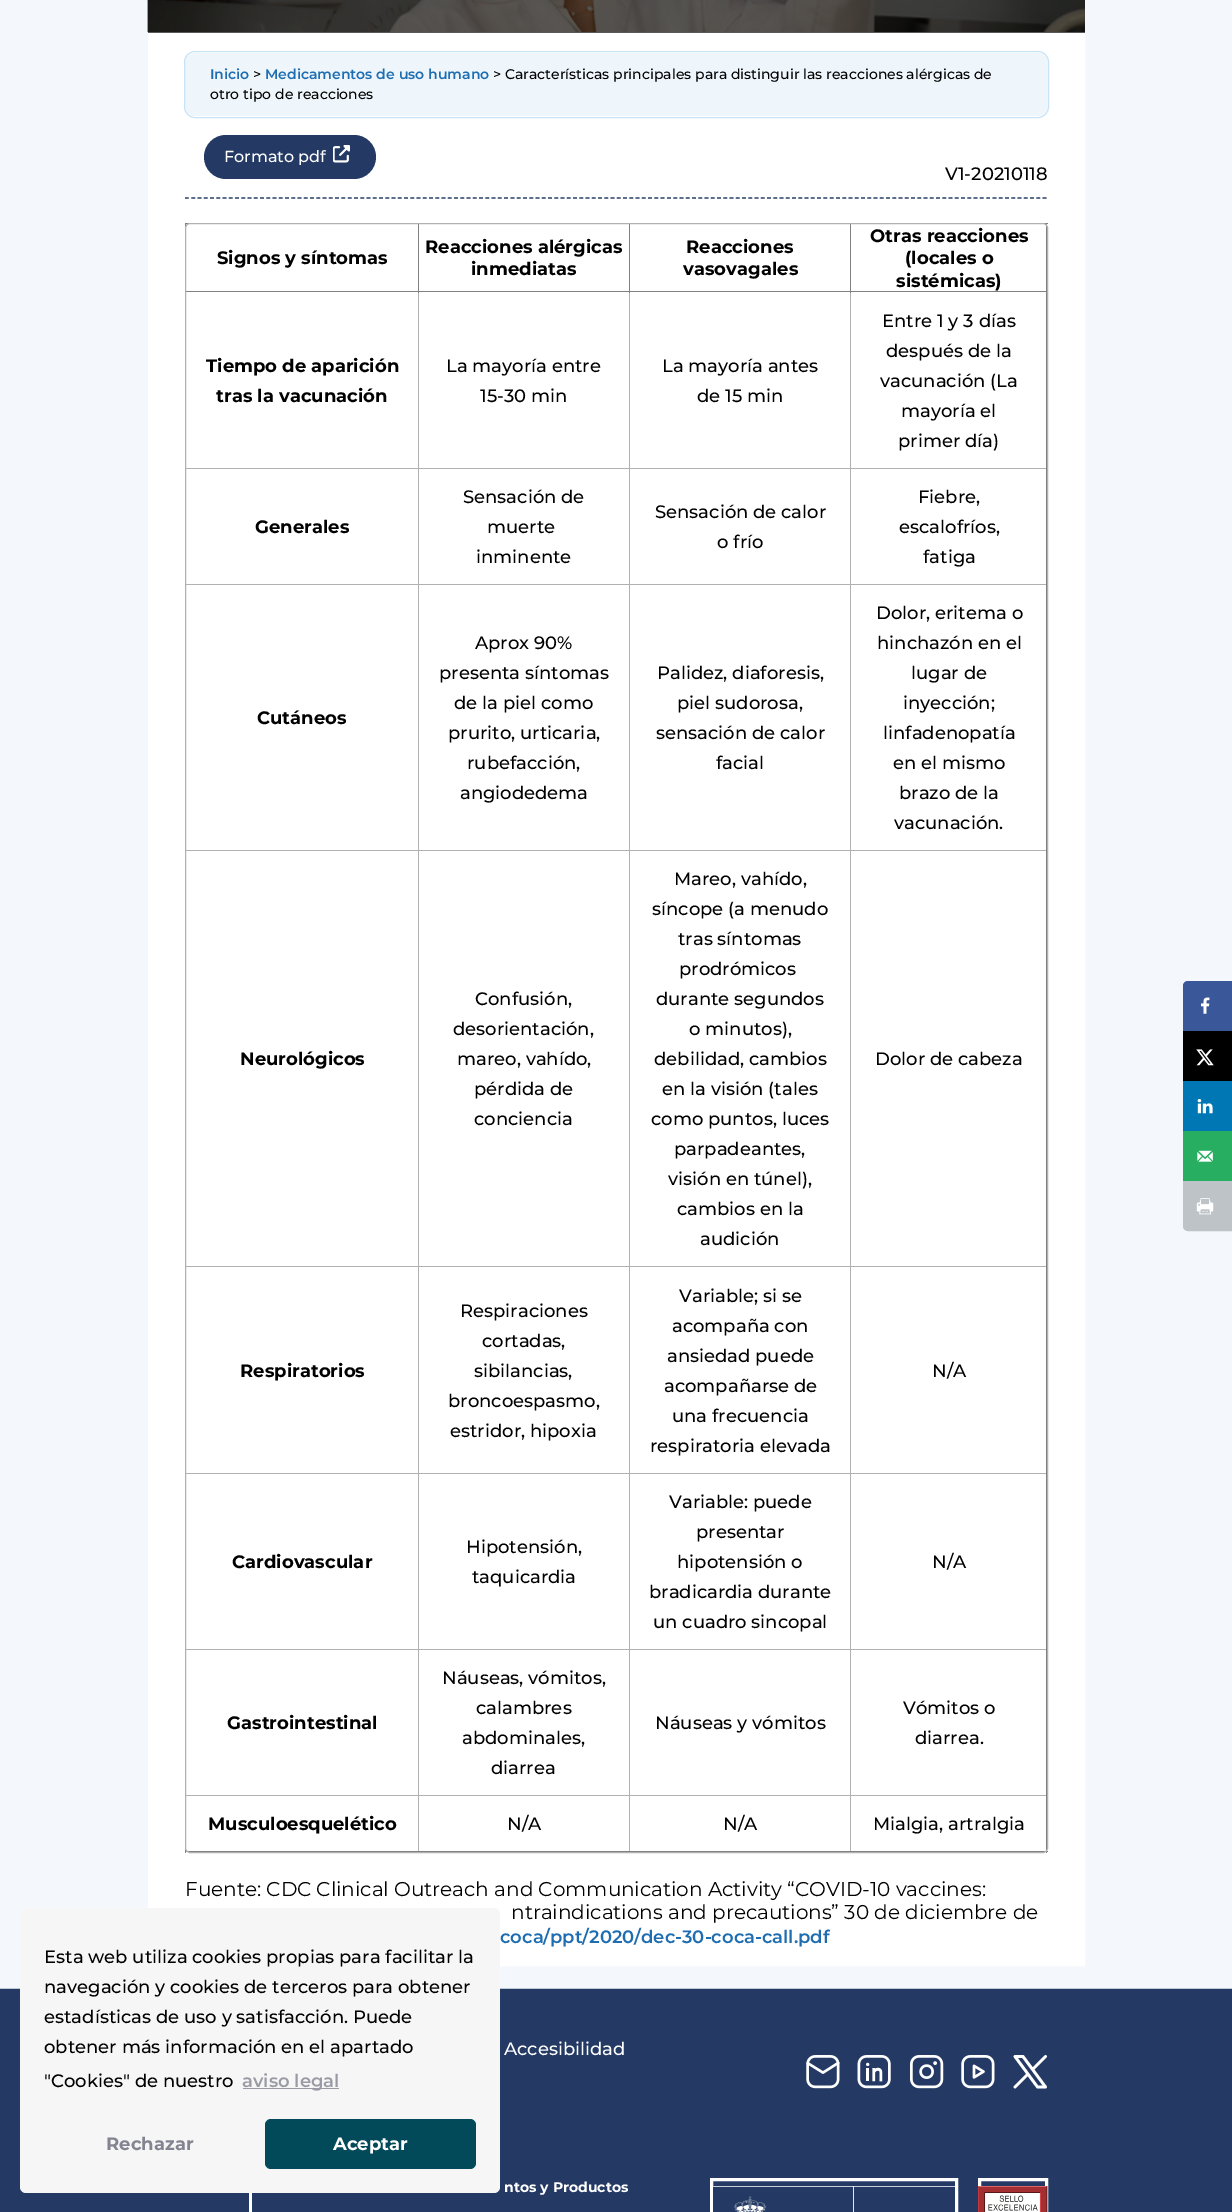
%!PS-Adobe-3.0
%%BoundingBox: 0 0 1232 2212
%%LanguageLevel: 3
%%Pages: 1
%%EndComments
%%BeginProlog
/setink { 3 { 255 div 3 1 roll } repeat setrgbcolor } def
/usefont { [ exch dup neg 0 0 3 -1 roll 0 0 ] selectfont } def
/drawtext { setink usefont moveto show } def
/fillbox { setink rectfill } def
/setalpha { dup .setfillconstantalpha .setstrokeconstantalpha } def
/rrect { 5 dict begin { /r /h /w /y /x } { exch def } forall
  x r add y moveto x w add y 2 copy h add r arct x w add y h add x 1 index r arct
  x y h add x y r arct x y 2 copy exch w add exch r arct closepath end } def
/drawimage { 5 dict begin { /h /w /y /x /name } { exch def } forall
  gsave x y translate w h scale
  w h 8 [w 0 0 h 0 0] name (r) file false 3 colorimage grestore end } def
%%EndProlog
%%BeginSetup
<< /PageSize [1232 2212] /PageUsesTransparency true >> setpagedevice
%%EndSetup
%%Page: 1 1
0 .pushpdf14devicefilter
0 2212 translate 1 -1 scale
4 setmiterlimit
0 0 1232 2212 244 247 252 fillbox
255 255 255 setink
19 setlinewidth
157.5 -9.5 918 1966 rectstroke
167 32 899 1915 255 255 255 fillbox
(assets/img1.rgb) 147 0 938 32 drawimage
0.65 setalpha
148 0 937 33 0 0 0 fillbox
1 setalpha
238 246 252 setink
185 53 863 63 10 rrect fill
199 227 245 setink
1 setlinewidth
184.5 51.5 864 66 10.5 rrect stroke
(Inicio) 210 79 /Montserrat-SemiBold 14 30 109 177 drawtext
(>) 253 79 /Montserrat-Medium 14 0 0 0 drawtext
(Medicamentos de uso humano) 265 79 /Montserrat-SemiBold 14 30 109 177 drawtext
(> Características principales para distinguir las reacciones alérgicas de) 493 79 /Montserrat-Medium 14 0 0 0 drawtext
(otro tipo de reacciones) 210 99 /Montserrat-Medium 14 0 0 0 drawtext
36 58 100 setink
204 135 172 44 22 rrect fill
(Formato pdf) 224 162 /Montserrat-Medium 16 255 255 255 drawtext
(assets/img2.rgb) 333 145 17 18 drawimage
(V1-20210118) 945 180 /Montserrat-Medium 18 0 0 0 drawtext
36 58 100 setink
1.2 setlinewidth
[3.75 2.51] 0 setdash
185 198 moveto 1047.5 198 lineto stroke
185 223 863 1 128 128 128 fillbox
1046 223 1 1630 128 128 128 fillbox
185 1851 863 1 128 128 128 fillbox
185 223 1 1630 128 128 128 fillbox
850 468 196 1 177 177 177 fillbox
850 584 196 1 177 177 177 fillbox
850 850 196 1 177 177 177 fillbox
850 1266 196 1 177 177 177 fillbox
850 1473 196 1 177 177 177 fillbox
850 1649 196 1 177 177 177 fillbox
850 1795 196 1 177 177 177 fillbox
850 1795 1 56 177 177 177 fillbox
629 1795 222 1 177 177 177 fillbox
850 1649 1 147 177 177 177 fillbox
629 1649 222 1 177 177 177 fillbox
850 1473 1 177 177 177 177 fillbox
629 1473 222 1 177 177 177 fillbox
850 1266 1 208 177 177 177 fillbox
629 1266 222 1 177 177 177 fillbox
850 850 1 418 177 177 177 fillbox
629 850 222 1 177 177 177 fillbox
850 584 1 267 177 177 177 fillbox
629 584 222 1 177 177 177 fillbox
850 468 1 117 177 177 177 fillbox
629 468 222 1 177 177 177 fillbox
850 291 1 178 177 177 177 fillbox
850 291 196 1 128 128 128 fillbox
850 224 1 69 128 128 128 fillbox
629 1795 1 56 177 177 177 fillbox
418 1795 212 1 177 177 177 fillbox
629 1649 1 147 177 177 177 fillbox
418 1649 212 1 177 177 177 fillbox
629 1473 1 177 177 177 177 fillbox
418 1473 212 1 177 177 177 fillbox
629 1266 1 208 177 177 177 fillbox
418 1266 212 1 177 177 177 fillbox
629 850 1 418 177 177 177 fillbox
418 850 212 1 177 177 177 fillbox
629 584 1 267 177 177 177 fillbox
418 584 212 1 177 177 177 fillbox
629 468 1 117 177 177 177 fillbox
418 468 212 1 177 177 177 fillbox
629 291 1 178 177 177 177 fillbox
629 291 222 1 128 128 128 fillbox
629 224 1 69 128 128 128 fillbox
418 1795 1 56 177 177 177 fillbox
186 1795 233 1 177 177 177 fillbox
418 1649 1 147 177 177 177 fillbox
186 1649 233 1 177 177 177 fillbox
418 1473 1 177 177 177 177 fillbox
186 1473 233 1 177 177 177 fillbox
418 1266 1 208 177 177 177 fillbox
186 1266 233 1 177 177 177 fillbox
418 850 1 418 177 177 177 fillbox
186 850 233 1 177 177 177 fillbox
418 584 1 267 177 177 177 fillbox
186 584 233 1 177 177 177 fillbox
418 468 1 117 177 177 177 fillbox
186 468 233 1 177 177 177 fillbox
418 291 1 178 177 177 177 fillbox
418 291 212 1 128 128 128 fillbox
418 224 1 69 128 128 128 fillbox
186 291 233 1 128 128 128 fillbox
177 177 177 setink
1 setlinewidth
[] 0 setdash
185.5 223.5 862 1629 4.5 rrect stroke
(Signos y síntomas) 217 264 /Montserrat-Bold 18 0 0 0 drawtext
(Reacciones alérgicas) 425 253 /Montserrat-Bold 18 0 0 0 drawtext
(inmediatas) 471 275 /Montserrat-Bold 18 0 0 0 drawtext
(Reacciones) 686 253 /Montserrat-Bold 18 0 0 0 drawtext
(vasovagales) 683 275 /Montserrat-Bold 18 0 0 0 drawtext
(Otras reacciones) 870 242 /Montserrat-Bold 18 0 0 0 drawtext
(\(locales o) 905 264 /Montserrat-Bold 18 0 0 0 drawtext
(sistémicas\)) 896 287 /Montserrat-Bold 18 0 0 0 drawtext
(Tiempo de aparición) 206 372 /Montserrat-Bold 18 0 0 0 drawtext
(tras la vacunación) 216 402 /Montserrat-Bold 18 0 0 0 drawtext
(La mayoría entre) 446 372 /Montserrat-Medium 18 0 0 0 drawtext
(15-30 min) 480 402 /Montserrat-Medium 18 0 0 0 drawtext
(La mayoría antes) 662 372 /Montserrat-Medium 18 0 0 0 drawtext
(de 15 min) 697 402 /Montserrat-Medium 18 0 0 0 drawtext
(Entre 1 y 3 días) 882 327 /Montserrat-Medium 18 0 0 0 drawtext
(después de la) 886 357 /Montserrat-Medium 18 0 0 0 drawtext
(vacunación \(La) 880 387 /Montserrat-Medium 18 0 0 0 drawtext
(mayoría el) 901 417 /Montserrat-Medium 18 0 0 0 drawtext
(primer día\)) 898 447 /Montserrat-Medium 18 0 0 0 drawtext
(Generales) 255 533 /Montserrat-Bold 18 0 0 0 drawtext
(Sensación de) 463 503 /Montserrat-Medium 18 0 0 0 drawtext
(muerte) 487 533 /Montserrat-Medium 18 0 0 0 drawtext
(inminente) 476 563 /Montserrat-Medium 18 0 0 0 drawtext
(Sensación de calor) 655 518 /Montserrat-Medium 18 0 0 0 drawtext
(o frío) 717 548 /Montserrat-Medium 18 0 0 0 drawtext
(Fiebre,) 918 503 /Montserrat-Medium 18 0 0 0 drawtext
(escalofríos,) 899 533 /Montserrat-Medium 18 0 0 0 drawtext
(fatiga) 923 563 /Montserrat-Medium 18 0 0 0 drawtext
(Cutáneos) 257 724 /Montserrat-Bold 18 0 0 0 drawtext
(Aprox 90%) 475 649 /Montserrat-Medium 18 0 0 0 drawtext
(presenta síntomas) 439 679 /Montserrat-Medium 18 0 0 0 drawtext
(de la piel como) 454 709 /Montserrat-Medium 18 0 0 0 drawtext
(prurito, urticaria,) 448 739 /Montserrat-Medium 18 0 0 0 drawtext
(rubefacción,) 467 769 /Montserrat-Medium 18 0 0 0 drawtext
(angiodedema) 460 799 /Montserrat-Medium 18 0 0 0 drawtext
(Palidez, diaforesis,) 657 679 /Montserrat-Medium 18 0 0 0 drawtext
(piel sudorosa,) 677 709 /Montserrat-Medium 18 0 0 0 drawtext
(sensación de calor) 656 739 /Montserrat-Medium 18 0 0 0 drawtext
(facial) 716 769 /Montserrat-Medium 18 0 0 0 drawtext
(Dolor, eritema o) 876 619 /Montserrat-Medium 18 0 0 0 drawtext
(hinchazón en el) 877 649 /Montserrat-Medium 18 0 0 0 drawtext
(lugar de) 911 679 /Montserrat-Medium 18 0 0 0 drawtext
(inyección;) 903 709 /Montserrat-Medium 18 0 0 0 drawtext
(linfadenopatía) 883 739 /Montserrat-Medium 18 0 0 0 drawtext
(en el mismo) 893 769 /Montserrat-Medium 18 0 0 0 drawtext
(brazo de la) 899 799 /Montserrat-Medium 18 0 0 0 drawtext
(vacunación.) 894 829 /Montserrat-Medium 18 0 0 0 drawtext
(Neurológicos) 240 1065 /Montserrat-Bold 18 0 0 0 drawtext
(Confusión,) 475 1005 /Montserrat-Medium 18 0 0 0 drawtext
(desorientación,) 453 1035 /Montserrat-Medium 18 0 0 0 drawtext
(mareo, vahído,) 457 1065 /Montserrat-Medium 18 0 0 0 drawtext
(pérdida de) 474 1095 /Montserrat-Medium 18 0 0 0 drawtext
(conciencia) 474 1125 /Montserrat-Medium 18 0 0 0 drawtext
(Mareo, vahído,) 674 885 /Montserrat-Medium 18 0 0 0 drawtext
(síncope \(a menudo) 652 915 /Montserrat-Medium 18 0 0 0 drawtext
(tras síntomas) 678 945 /Montserrat-Medium 18 0 0 0 drawtext
(prodrómicos) 679 975 /Montserrat-Medium 18 0 0 0 drawtext
(durante segundos) 656 1005 /Montserrat-Medium 18 0 0 0 drawtext
(o minutos\),) 689 1035 /Montserrat-Medium 18 0 0 0 drawtext
(debilidad, cambios) 654 1065 /Montserrat-Medium 18 0 0 0 drawtext
(en la visión \(tales) 662 1095 /Montserrat-Medium 18 0 0 0 drawtext
(como puntos, luces) 651 1125 /Montserrat-Medium 18 0 0 0 drawtext
(parpadeantes,) 674 1155 /Montserrat-Medium 18 0 0 0 drawtext
(visión en túnel\),) 668 1185 /Montserrat-Medium 18 0 0 0 drawtext
(cambios en la) 677 1215 /Montserrat-Medium 18 0 0 0 drawtext
(audición) 700 1245 /Montserrat-Medium 18 0 0 0 drawtext
(Dolor de cabeza) 875 1065 /Montserrat-Medium 18 0 0 0 drawtext
(Respiratorios) 240 1377 /Montserrat-Bold 18 0 0 0 drawtext
(Respiraciones) 460 1317 /Montserrat-Medium 18 0 0 0 drawtext
(cortadas,) 482 1347 /Montserrat-Medium 18 0 0 0 drawtext
(sibilancias,) 474 1377 /Montserrat-Medium 18 0 0 0 drawtext
(broncoespasmo,) 448 1407 /Montserrat-Medium 18 0 0 0 drawtext
(estridor, hipoxia) 450 1437 /Montserrat-Medium 18 0 0 0 drawtext
(Variable; si se) 679 1302 /Montserrat-Medium 18 0 0 0 drawtext
(acompaña con) 672 1332 /Montserrat-Medium 18 0 0 0 drawtext
(ansiedad puede) 667 1362 /Montserrat-Medium 18 0 0 0 drawtext
(acompañarse de) 664 1392 /Montserrat-Medium 18 0 0 0 drawtext
(una frecuencia) 672 1422 /Montserrat-Medium 18 0 0 0 drawtext
(respiratoria elevada) 650 1452 /Montserrat-Medium 18 0 0 0 drawtext
(N/A) 932 1377 /Montserrat-Medium 18 0 0 0 drawtext
(Cardiovascular) 232 1568 /Montserrat-Bold 18 0 0 0 drawtext
(Hipotensión,) 466 1553 /Montserrat-Medium 18 0 0 0 drawtext
(taquicardia) 472 1583 /Montserrat-Medium 18 0 0 0 drawtext
(Variable: puede) 669 1508 /Montserrat-Medium 18 0 0 0 drawtext
(presentar) 696 1538 /Montserrat-Medium 18 0 0 0 drawtext
(hipotensión o) 677 1568 /Montserrat-Medium 18 0 0 0 drawtext
(bradicardia durante) 649 1598 /Montserrat-Medium 18 0 0 0 drawtext
(un cuadro sincopal) 653 1628 /Montserrat-Medium 18 0 0 0 drawtext
(N/A) 932 1568 /Montserrat-Medium 18 0 0 0 drawtext
(Gastrointestinal) 227 1729 /Montserrat-Bold 18 0 0 0 drawtext
(Náuseas, vómitos,) 442 1684 /Montserrat-Medium 18 0 0 0 drawtext
(calambres) 476 1714 /Montserrat-Medium 18 0 0 0 drawtext
(abdominales,) 462 1744 /Montserrat-Medium 18 0 0 0 drawtext
(diarrea) 491 1774 /Montserrat-Medium 18 0 0 0 drawtext
(Náuseas y vómitos) 655 1729 /Montserrat-Medium 18 0 0 0 drawtext
(Vómitos o) 903 1714 /Montserrat-Medium 18 0 0 0 drawtext
(diarrea.) 915 1744 /Montserrat-Medium 18 0 0 0 drawtext
(Musculoesquelético) 208 1830 /Montserrat-Bold 18 0 0 0 drawtext
(N/A) 507 1830 /Montserrat-Medium 18 0 0 0 drawtext
(N/A) 723 1830 /Montserrat-Medium 18 0 0 0 drawtext
(Mialgia, artralgia) 873 1830 /Montserrat-Medium 18 0 0 0 drawtext
(Fuente: CDC Clinical Outreach and Communication Activity “COVID-10 vaccines:) 185 1896 /Montserrat-Regular 20 0 0 0 drawtext
(ntraindications and precautions” 30 de diciembre de) 511 1919 /Montserrat-Regular 20 0 0 0 drawtext
(coca/ppt/2020/dec-30-coca-call.pdf) 500 1943 /Montserrat-SemiBold 18 30 109 177 drawtext
58 87 154 setink
1188 982.5 moveto 1231.5 982.5 lineto 1231.5 1029.5 lineto 1184.5 1029.5 lineto 1184.5 986 lineto 1184.5 984 1186 982.5 1188 982.5 curveto closepath gsave fill grestore
3 setlinewidth
stroke
(assets/img3.rgb) 1201 997 9 17 drawimage
1183 1031 49 50 0 0 0 fillbox
(assets/img4.rgb) 1196 1049 18 17 drawimage
1183 1081 49 50 0 119 181 fillbox
(assets/img5.rgb) 1197 1099 16 15 drawimage
1183 1131 49 50 39 174 96 fillbox
(assets/img6.rgb) 1197 1150 16 12 drawimage
189 195 199 setink
1184.5 1182.5 moveto 1231.5 1182.5 lineto 1231.5 1229.5 lineto 1188 1229.5 lineto 1186 1229.5 1184.5 1228 1184.5 1226 curveto closepath gsave fill grestore
stroke
(assets/img7.rgb) 1196 1198 18 17 drawimage
0 1989 1232 223 36 58 100 fillbox
0 1988 1232 1 190 201 214 fillbox
246 246 246 setink
20 1908 480 285 6 rrect fill
(Esta web utiliza cookies propias para facilitar la) 44 1963 /Montserrat-Medium 18 0 0 0 drawtext
(navegación y cookies de terceros para obtener) 44 1993 /Montserrat-Medium 18 0 0 0 drawtext
(estadísticas de uso y satisfacción. Puede) 44 2023 /Montserrat-Medium 18 0 0 0 drawtext
(obtener más información en el apartado) 44 2053 /Montserrat-Medium 18 0 0 0 drawtext
("Cookies" de nuestro) 44 2087 /Montserrat-Medium 18 0 0 0 drawtext
243 2088 96 1 154 154 165 fillbox
(aviso legal) 242 2087 /Montserrat-SemiBold 18 154 154 165 drawtext
(Rechazar) 106 2150 /Montserrat-Bold 18 131 131 145 drawtext
2 73 89 setink
265 2119 211 50 6 rrect fill
(Aceptar) 333 2150 /Montserrat-Bold 18 255 255 255 drawtext
(Accesibilidad) 504 2055 /Montserrat-Medium 18 255 255 255 drawtext
(assets/img8.rgb) 806 2055 34 34 drawimage
(assets/img9.rgb) 857 2055 34 34 drawimage
(assets/img10.rgb) 910 2055 34 34 drawimage
(assets/img11.rgb) 961 2055 34 34 drawimage
2.7 setlinewidth
1 setlinecap
1 setlinejoin
1015 2056.5 moveto 1037.5 2087 lineto 1045.5 2087 lineto 1023 2056.5 lineto closepath 1015 2087 moveto 1028 2074 lineto 1033 2069 moveto 1045.5 2056.5 lineto stroke
249 2193 3 19 255 255 255 fillbox
(ntos y Productos) 504 2192 /Montserrat-Bold 14 255 255 255 drawtext
3 setlinewidth
0 setlinecap
0 setlinejoin
711.5 2179.5 245 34 rectstroke
(assets/img12.rgb) 713 2186 242 26 drawimage
979.5 2179.5 67 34 rectstroke
(assets/img13.rgb) 978 2186 70 26 drawimage
.poppdf14devicefilter showpage
%%EOF
